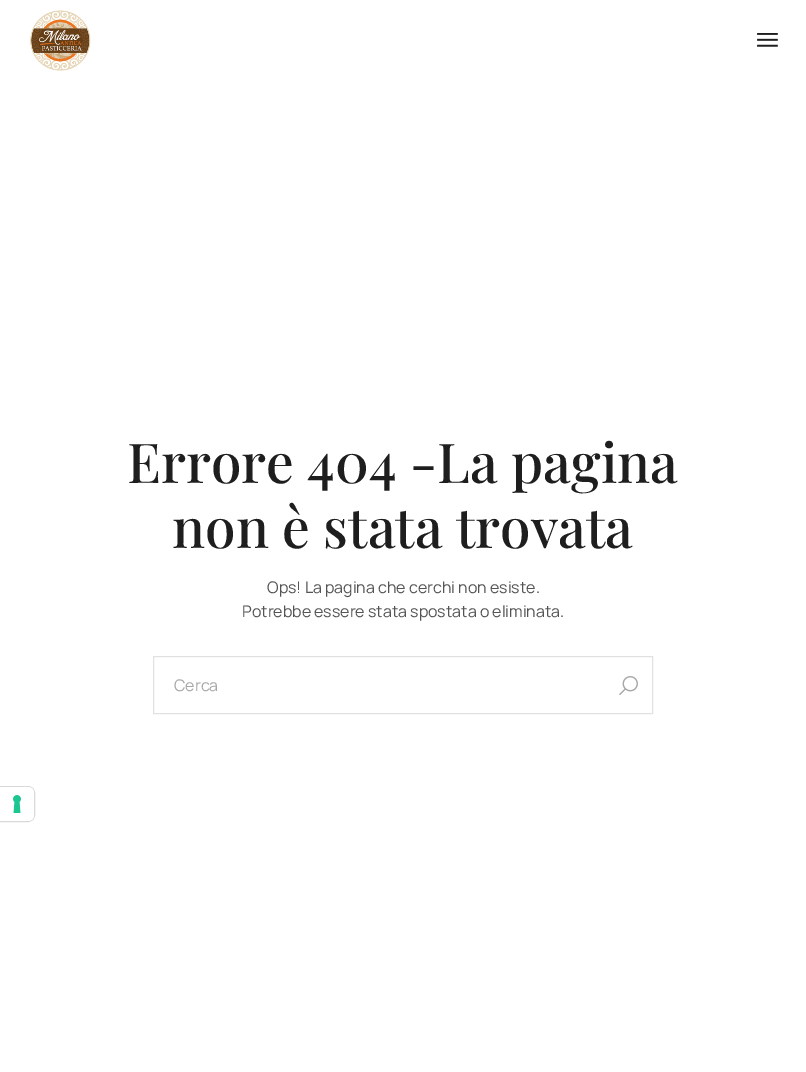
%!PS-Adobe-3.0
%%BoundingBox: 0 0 806 1072
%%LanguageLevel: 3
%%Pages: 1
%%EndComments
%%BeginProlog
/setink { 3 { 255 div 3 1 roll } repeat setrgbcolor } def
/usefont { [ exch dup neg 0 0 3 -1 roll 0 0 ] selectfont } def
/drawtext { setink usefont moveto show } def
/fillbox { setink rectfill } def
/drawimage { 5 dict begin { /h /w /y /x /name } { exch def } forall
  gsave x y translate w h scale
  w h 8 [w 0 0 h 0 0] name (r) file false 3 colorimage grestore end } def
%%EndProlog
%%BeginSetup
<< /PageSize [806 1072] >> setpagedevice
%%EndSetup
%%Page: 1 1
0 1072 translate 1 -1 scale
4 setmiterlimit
0 0 806 1072 255 255 255 fillbox
(assets/img1.rgb) 30 10 61 61 drawimage
(assets/img2.rgb) 757 33 21 14 drawimage
(Errore 404 -La pagina) 127 483 /PlayfairDisplay-Medium 55 30 30 30 drawtext
(non è stata trovata) 172 548 /PlayfairDisplay-Medium 55 30 30 30 drawtext
(Ops! La pagina che cerchi non esiste.) 267 593 /Manrope-Regular 16 84 84 84 drawtext
(Potrebbe essere stata spostata o eliminata.) 242 617 /Manrope-Regular 16 84 84 84 drawtext
225 225 225 setink
153.5 656.5 499 57 rectstroke
(Cerca) 174 691 /Manrope-Regular 16 168 167 167 drawtext
(assets/img3.rgb) 619 676 19 19 drawimage
217 217 217 setink
-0.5 786.5 moveto 28 786.5 lineto 31.5 786.5 34.5 789.5 34.5 793 curveto 34.5 815 lineto 34.5 818.5 31.5 821.5 28 821.5 curveto -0.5 821.5 lineto closepath stroke
255 255 255 setink
0 787 moveto 28 787 lineto 31.5 787 34 789.5 34 793 curveto 34 815 lineto 34 818.5 31.5 821 28 821 curveto 0 821 lineto closepath fill
(assets/img4.rgb) 13 795 8 18 drawimage
showpage
%%EOF
